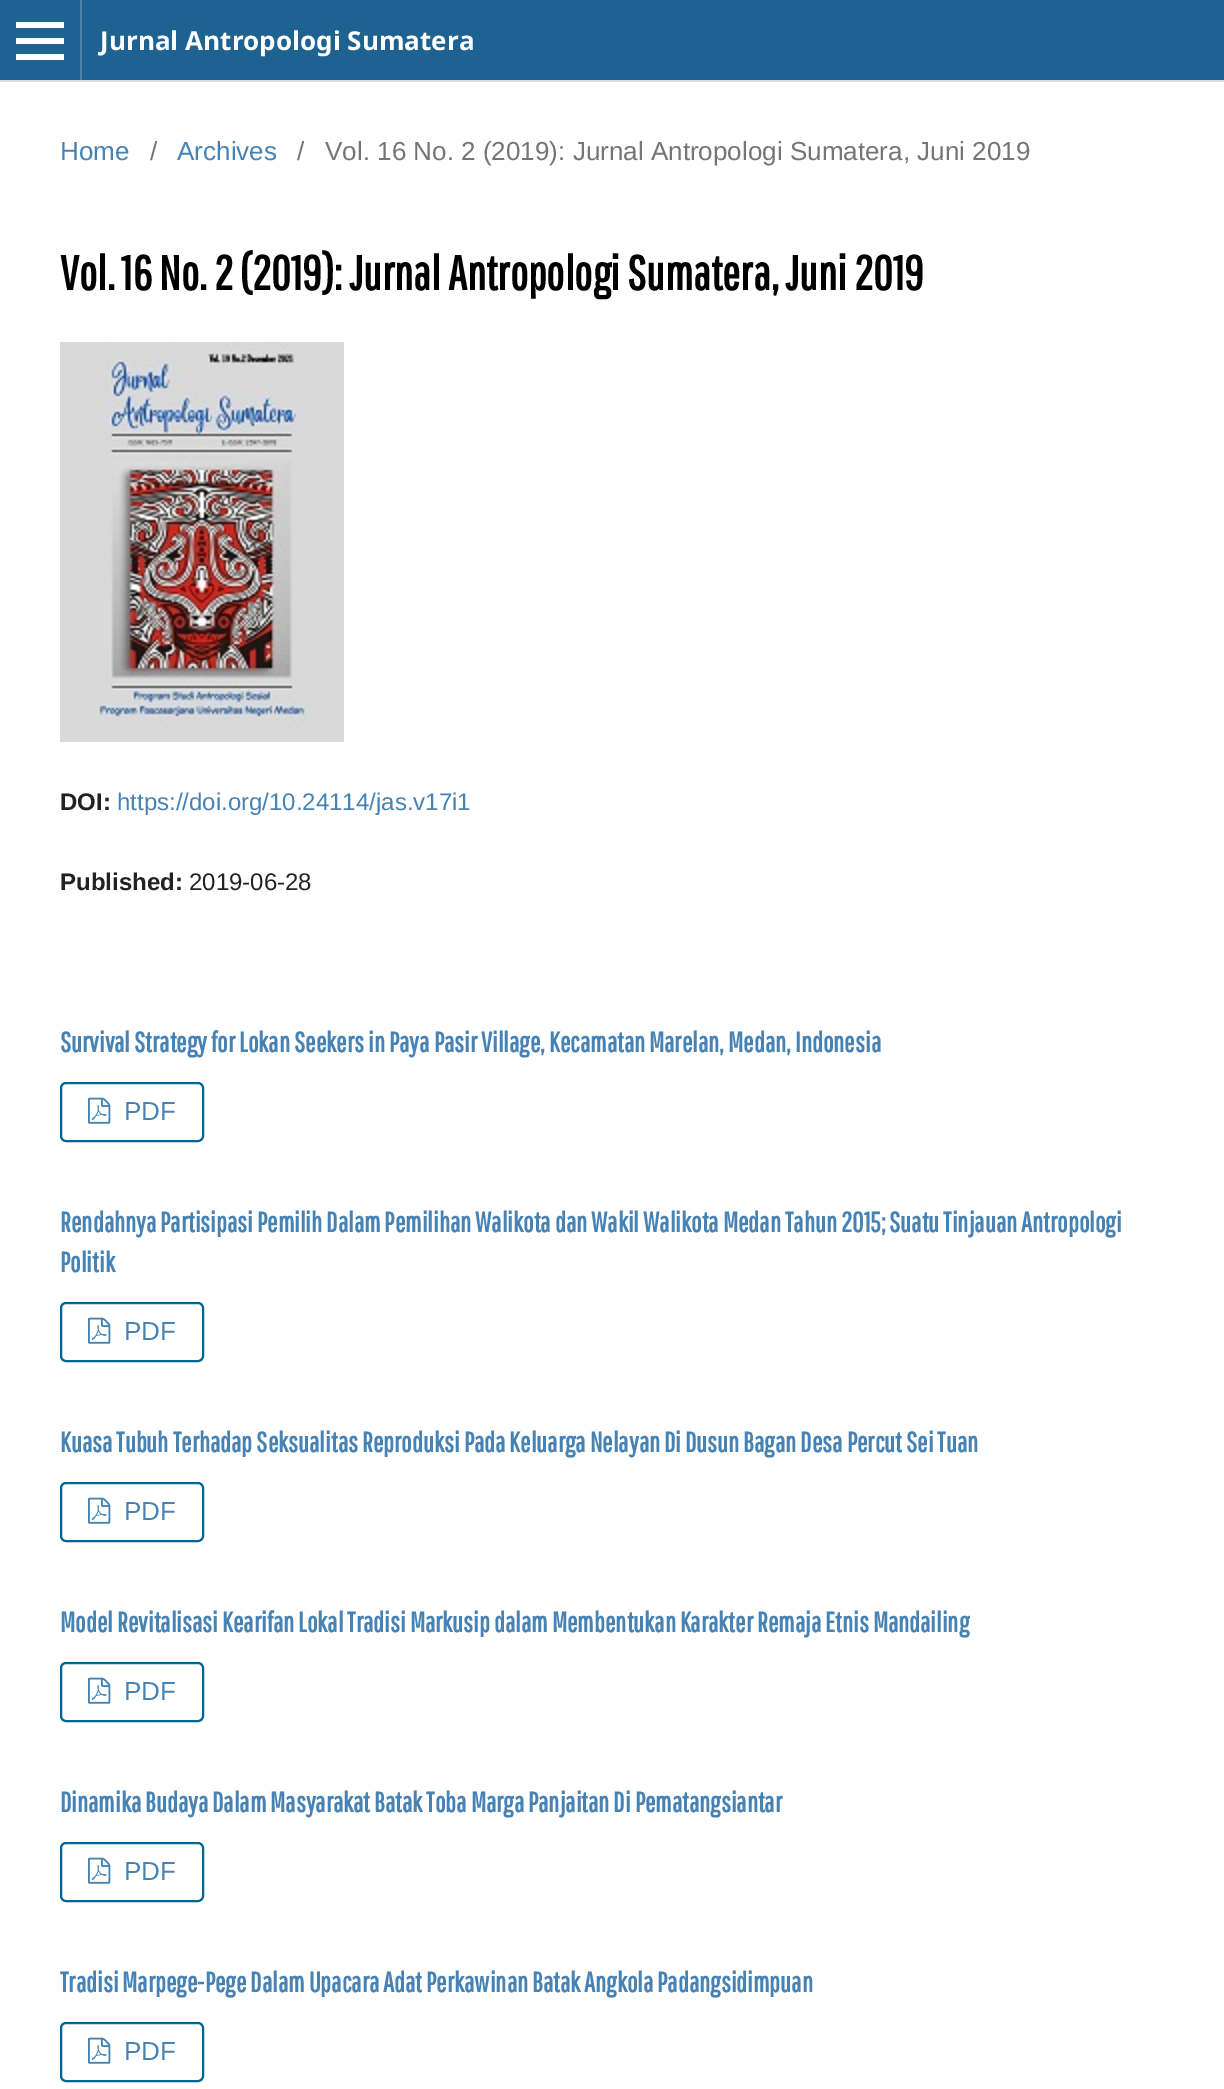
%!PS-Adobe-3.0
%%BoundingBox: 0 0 1224 2089
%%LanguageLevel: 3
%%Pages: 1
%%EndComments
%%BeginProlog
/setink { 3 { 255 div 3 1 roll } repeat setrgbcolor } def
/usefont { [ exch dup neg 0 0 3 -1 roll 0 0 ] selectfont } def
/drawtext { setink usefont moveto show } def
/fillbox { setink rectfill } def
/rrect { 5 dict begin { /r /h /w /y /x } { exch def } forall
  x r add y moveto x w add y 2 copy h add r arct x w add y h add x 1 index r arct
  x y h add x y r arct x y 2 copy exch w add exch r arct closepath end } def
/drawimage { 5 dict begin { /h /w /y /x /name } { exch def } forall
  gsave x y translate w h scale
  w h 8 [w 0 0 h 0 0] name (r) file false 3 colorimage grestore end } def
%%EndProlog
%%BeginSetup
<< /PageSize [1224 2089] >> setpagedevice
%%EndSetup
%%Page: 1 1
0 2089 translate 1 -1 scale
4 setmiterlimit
0 0 1224 2089 255 255 255 fillbox
0 0 1224 80 30 98 146 fillbox
0 80 1224 2 221 221 221 fillbox
80 0 2 80 75 129 168 fillbox
16 54 48 6 255 255 255 fillbox
16 22 48 6 255 255 255 fillbox
16 38 48 6 255 255 255 fillbox
(Jurnal Antropologi Sumatera) 100 50 /NotoSans-Bold 26.05 255 255 255 drawtext
(Home) 60 160 /LiberationSans-Regular 26.05 70 130 180 drawtext
(/) 150 160 /LiberationSans-Regular 26.05 117 117 117 drawtext
(Archives) 177 160 /LiberationSans-Regular 26.05 70 130 180 drawtext
(/) 297 160 /LiberationSans-Regular 26.05 117 117 117 drawtext
(Vol. 16 No. 2 \(2019\): Jurnal Antropologi Sumatera, Juni 2019) 325 160 /LiberationSans-Regular 26.05 117 117 117 drawtext
(Vol. 16 No. 2 \(2019\): Jurnal Antropologi Sumatera, Juni 2019) 60 290 /PathwayGothicOne-Bold 48 0 0 0 drawtext
(assets/img1.rgb) 60 342 284 400 drawimage
(DOI:) 60 810 /LiberationSans-Bold 24 34 34 34 drawtext
(https://doi.org/10.24114/jas.v17i1) 117 810 /LiberationSans-Regular 24 70 130 180 drawtext
(Published:) 60 890 /LiberationSans-Bold 24 34 34 34 drawtext
(2019-06-28) 189 890 /LiberationSans-Regular 24 34 34 34 drawtext
(Survival Strategy for Lokan Seekers in Paya Pasir Village, Kecamatan Marelan, Medan, Indonesia) 60 1052 /PathwayGothicOne-Bold 28 70 130 180 drawtext
0 103 152 setink
2 setlinewidth
61 1083 142 58 5 rrect stroke
(assets/img2.rgb) 88 1097 23 27 drawimage
(PDF) 124 1120 /LiberationSans-Regular 26.05 70 130 180 drawtext
(Rendahnya Partisipasi Pemilih Dalam Pemilihan Walikota dan Wakil Walikota Medan Tahun 2015; Suatu Tinjauan Antropologi) 60 1232 /PathwayGothicOne-Bold 28 70 130 180 drawtext
(Politik) 60 1272 /PathwayGothicOne-Bold 28 70 130 180 drawtext
0 103 152 setink
61 1303 142 58 5 rrect stroke
(assets/img2.rgb) 88 1317 23 27 drawimage
(PDF) 124 1340 /LiberationSans-Regular 26.05 70 130 180 drawtext
(Kuasa Tubuh Terhadap Seksualitas Reproduksi Pada Keluarga Nelayan Di Dusun Bagan Desa Percut Sei Tuan) 60 1452 /PathwayGothicOne-Bold 28 70 130 180 drawtext
0 103 152 setink
61 1483 142 58 5 rrect stroke
(assets/img2.rgb) 88 1497 23 27 drawimage
(PDF) 124 1520 /LiberationSans-Regular 26.05 70 130 180 drawtext
(Model Revitalisasi Kearifan Lokal Tradisi Markusip dalam Membentukan Karakter Remaja Etnis Mandailing) 60 1632 /PathwayGothicOne-Bold 28 70 130 180 drawtext
0 103 152 setink
61 1663 142 58 5 rrect stroke
(assets/img2.rgb) 88 1677 23 27 drawimage
(PDF) 124 1700 /LiberationSans-Regular 26.05 70 130 180 drawtext
(Dinamika Budaya Dalam Masyarakat Batak Toba Marga Panjaitan Di Pematangsiantar) 60 1812 /PathwayGothicOne-Bold 28 70 130 180 drawtext
0 103 152 setink
61 1843 142 58 5 rrect stroke
(assets/img2.rgb) 88 1857 23 27 drawimage
(PDF) 124 1880 /LiberationSans-Regular 26.05 70 130 180 drawtext
(Tradisi Marpege-Pege Dalam Upacara Adat Perkawinan Batak Angkola Padangsidimpuan) 60 1992 /PathwayGothicOne-Bold 28 70 130 180 drawtext
0 103 152 setink
61 2023 142 58 5 rrect stroke
(assets/img2.rgb) 88 2037 23 27 drawimage
(PDF) 124 2060 /LiberationSans-Regular 26.05 70 130 180 drawtext
showpage
%%EOF
